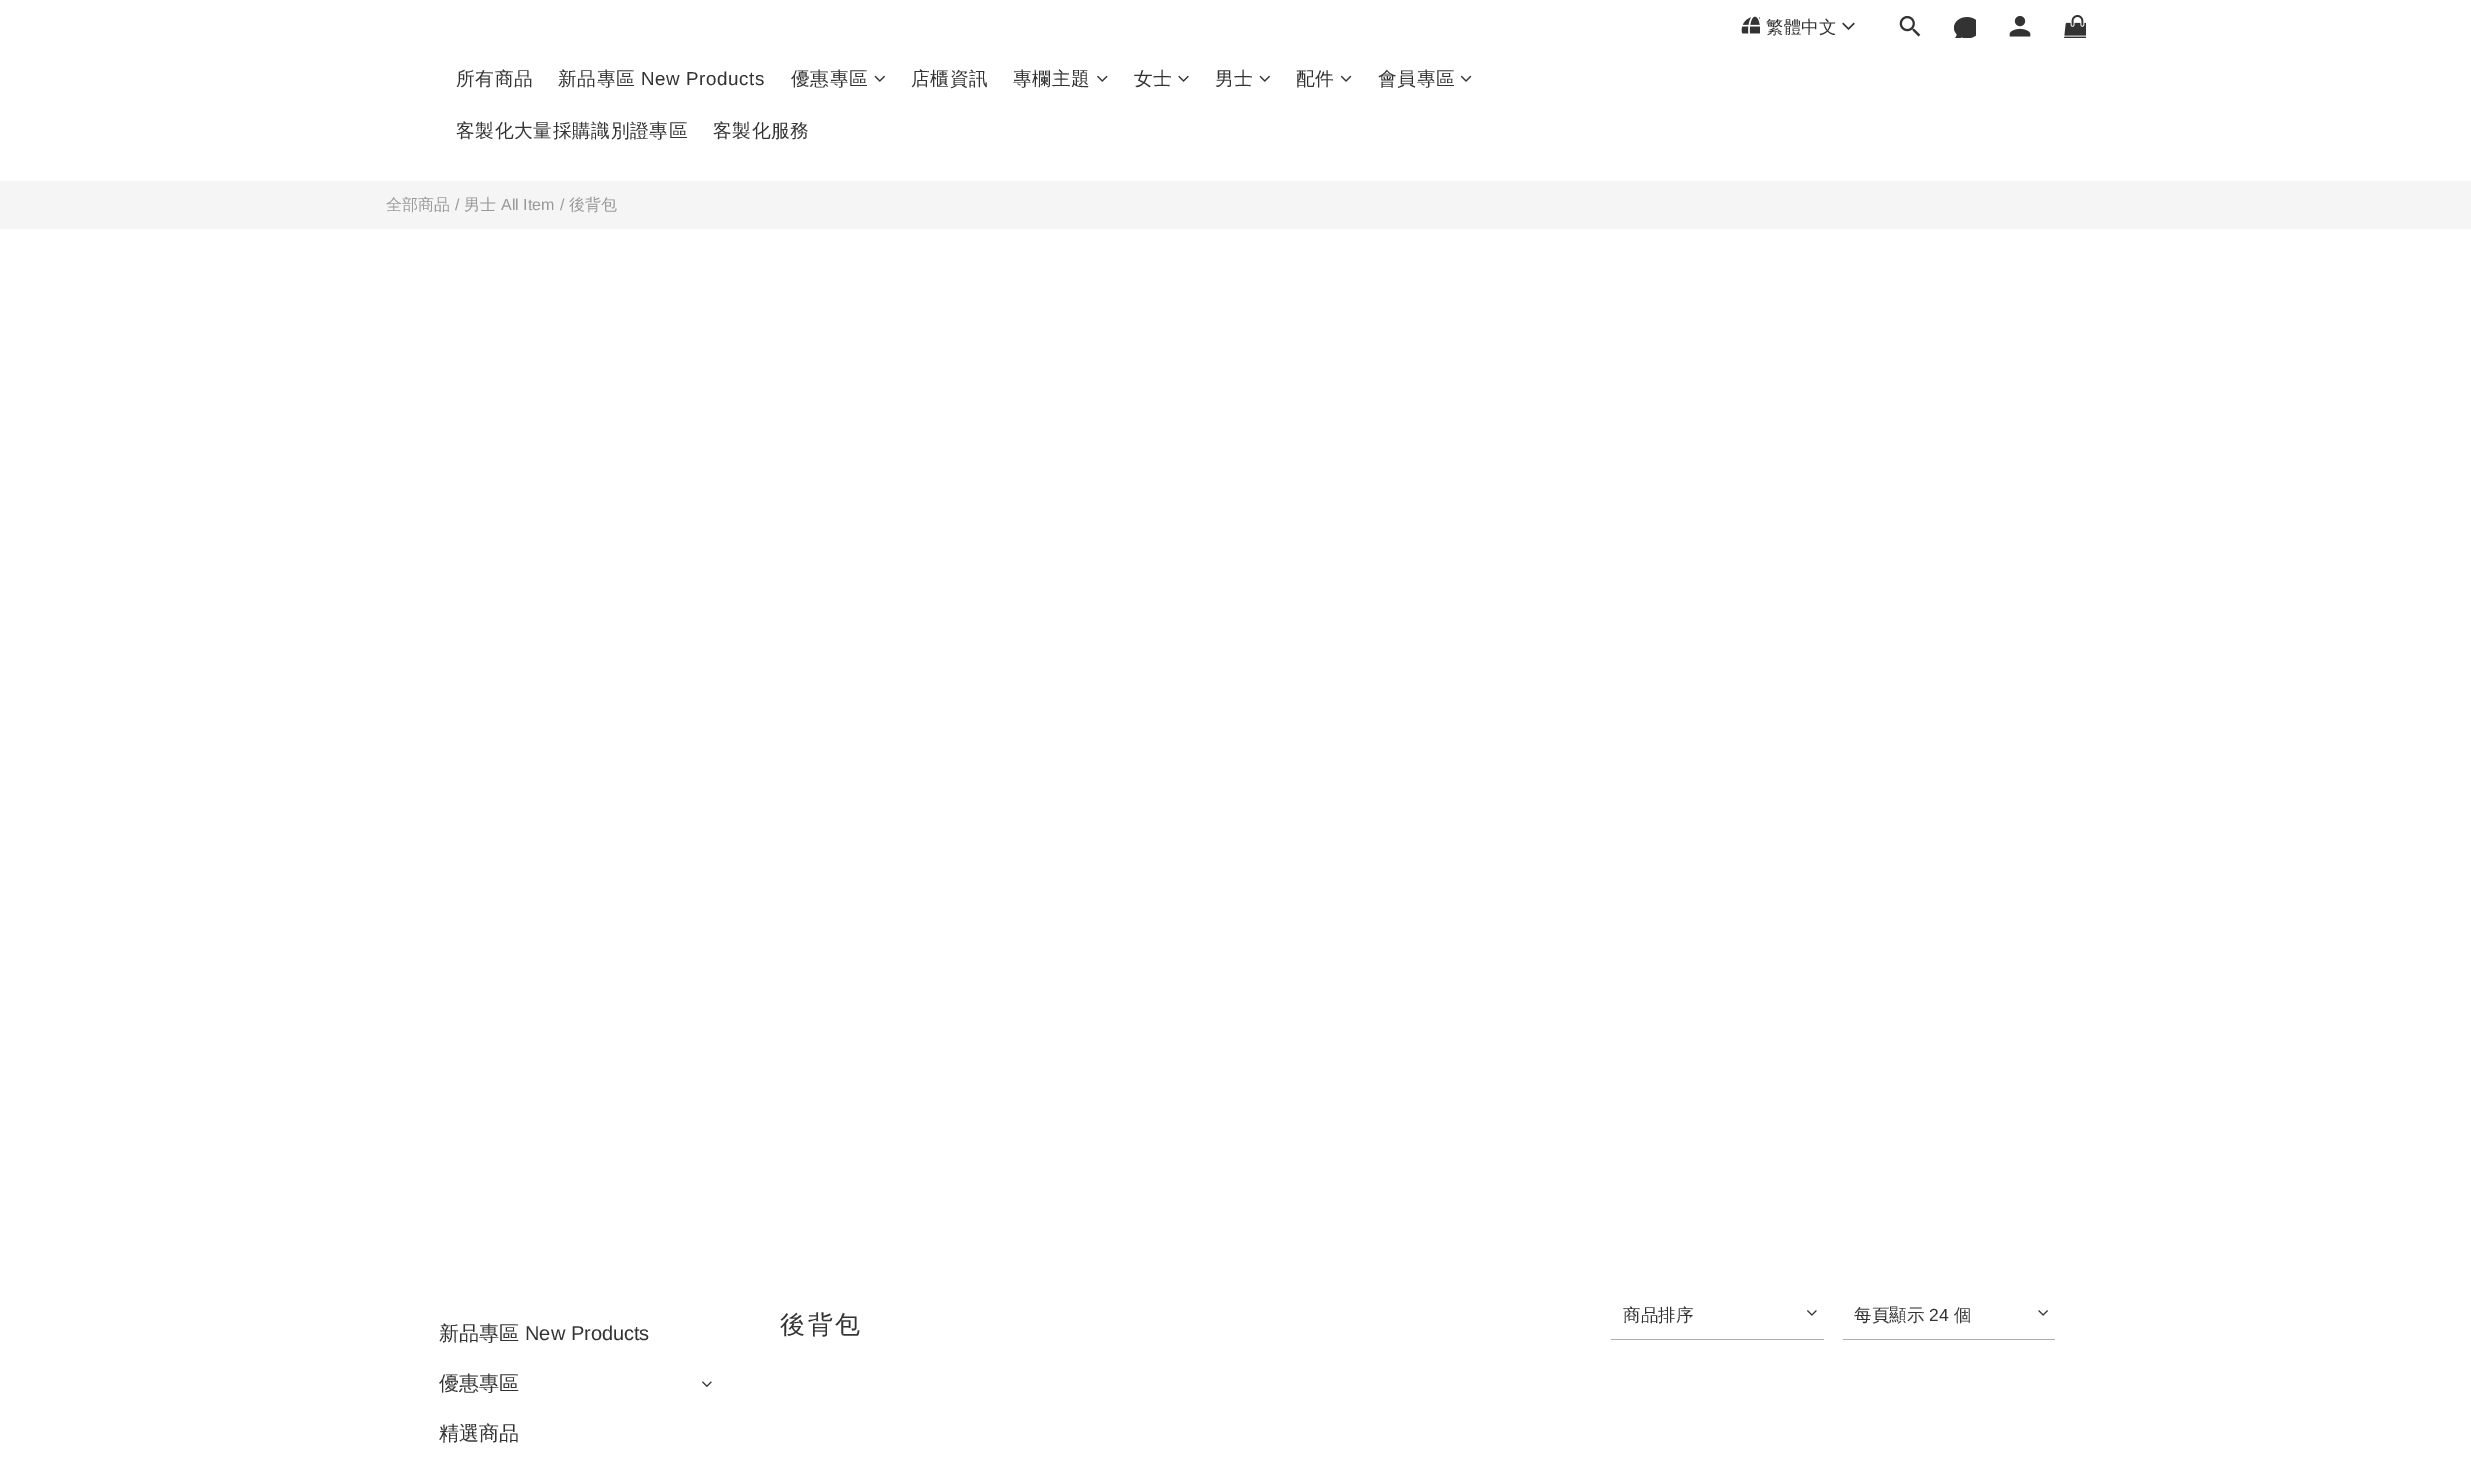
%!PS-Adobe-3.0
%%BoundingBox: 0 0 2471 1457
%%LanguageLevel: 3
%%Pages: 1
%%EndComments
%%BeginProlog
/setink { 3 { 255 div 3 1 roll } repeat setrgbcolor } def
/usefont { [ exch dup neg 0 0 3 -1 roll 0 0 ] selectfont } def
/drawtext { setink usefont moveto show } def
/fillbox { setink rectfill } def
/drawimage { 5 dict begin { /h /w /y /x /name } { exch def } forall
  gsave x y translate w h scale
  w h 8 [w 0 0 h 0 0] name (r) file false 3 colorimage grestore end } def
%%EndProlog
%%BeginSetup
<< /PageSize [2471 1457] >> setpagedevice
%%EndSetup
%%Page: 1 1
0 1457 translate 1 -1 scale
4 setmiterlimit
0 0 2471 1457 255 255 255 fillbox
(assets/img1.rgb) 1741 16 19 18 drawimage
(繁體中文) 1766 33 /WenQuanYiZenHei-Medium 17.5 51 51 51 drawtext
(assets/img2.rgb) 1842 22 13 8 drawimage
(assets/img3.rgb) 1899 15 22 22 drawimage
(assets/img4.rgb) 1954 17 22 21 drawimage
(assets/img5.rgb) 2009 16 22 21 drawimage
(assets/img6.rgb) 2064 15 22 23 drawimage
/WenQuanYiZenHei-Medium 18.75 usefont
456 85 moveto 0.6 0 (所有商品) ashow
558 85 moveto 0.6 0 (新品專區) ashow
/LiberationSans-Regular 18.75 usefont
641 85 moveto 0.6 0 (New Products) ashow
/WenQuanYiZenHei-Medium 18.75 usefont
791 85 moveto 0.6 0 (優惠專區) ashow
(assets/img7.rgb) 874 75 11 7 drawimage
911 85 moveto 0.6 0 (店櫃資訊) ashow
1013 85 moveto 0.6 0 (專欄主題) ashow
(assets/img8.rgb) 1097 75 11 7 drawimage
1134 85 moveto 0.6 0 (女士) ashow
(assets/img9.rgb) 1178 75 11 7 drawimage
1215 85 moveto 0.6 0 (男士) ashow
(assets/img7.rgb) 1259 75 11 7 drawimage
1296 85 moveto 0.6 0 (配件) ashow
(assets/img10.rgb) 1340 75 12 7 drawimage
1378 85 moveto 0.6 0 (會員專區) ashow
(assets/img10.rgb) 1460 75 12 7 drawimage
456 137 moveto 0.6 0 (客製化大量採購識別證專區) ashow
713 137 moveto 0.6 0 (客製化服務) ashow
0 181 2471 48 245 245 245 fillbox
(全部商品) 386 210 /WenQuanYiZenHei-Medium 16 153 153 153 drawtext
(/) 455 210 /LiberationSans-Regular 16 153 153 153 drawtext
(男士) 464 210 /WenQuanYiZenHei-Medium 16 153 153 153 drawtext
(All Item) 501 210 /LiberationSans-Regular 16 153 153 153 drawtext
(/) 560 210 /LiberationSans-Regular 16 153 153 153 drawtext
(後背包) 569 210 /WenQuanYiZenHei-Medium 16 153 153 153 drawtext
(新品專區) 439 1340 /WenQuanYiZenHei-Medium 20 51 51 51 drawtext
(New Products) 525 1340 /LiberationSans-Regular 20 51 51 51 drawtext
(優惠專區) 439 1390 /WenQuanYiZenHei-Medium 20 51 51 51 drawtext
(assets/img11.rgb) 702 1381 10 6 drawimage
(精選商品) 439 1440 /WenQuanYiZenHei-Medium 20 51 51 51 drawtext
/WenQuanYiZenHei-Medium 25 usefont
780 1333 moveto 2.5 0 (後背包) ashow
(商品排序) 1623 1321 /WenQuanYiZenHei-Medium 17.5 51 51 51 drawtext
1611 1339 213 1 173 173 173 fillbox
(assets/img12.rgb) 1807 1310 10 6 drawimage
(每頁顯示) 1854 1321 /WenQuanYiZenHei-Medium 17.5 51 51 51 drawtext
(24) 1929 1321 /LiberationSans-Regular 17.5 51 51 51 drawtext
(個) 1954 1321 /WenQuanYiZenHei-Medium 17.5 51 51 51 drawtext
1843 1339 212 1 173 173 173 fillbox
(assets/img13.rgb) 2038 1310 10 6 drawimage
showpage
%%EOF
